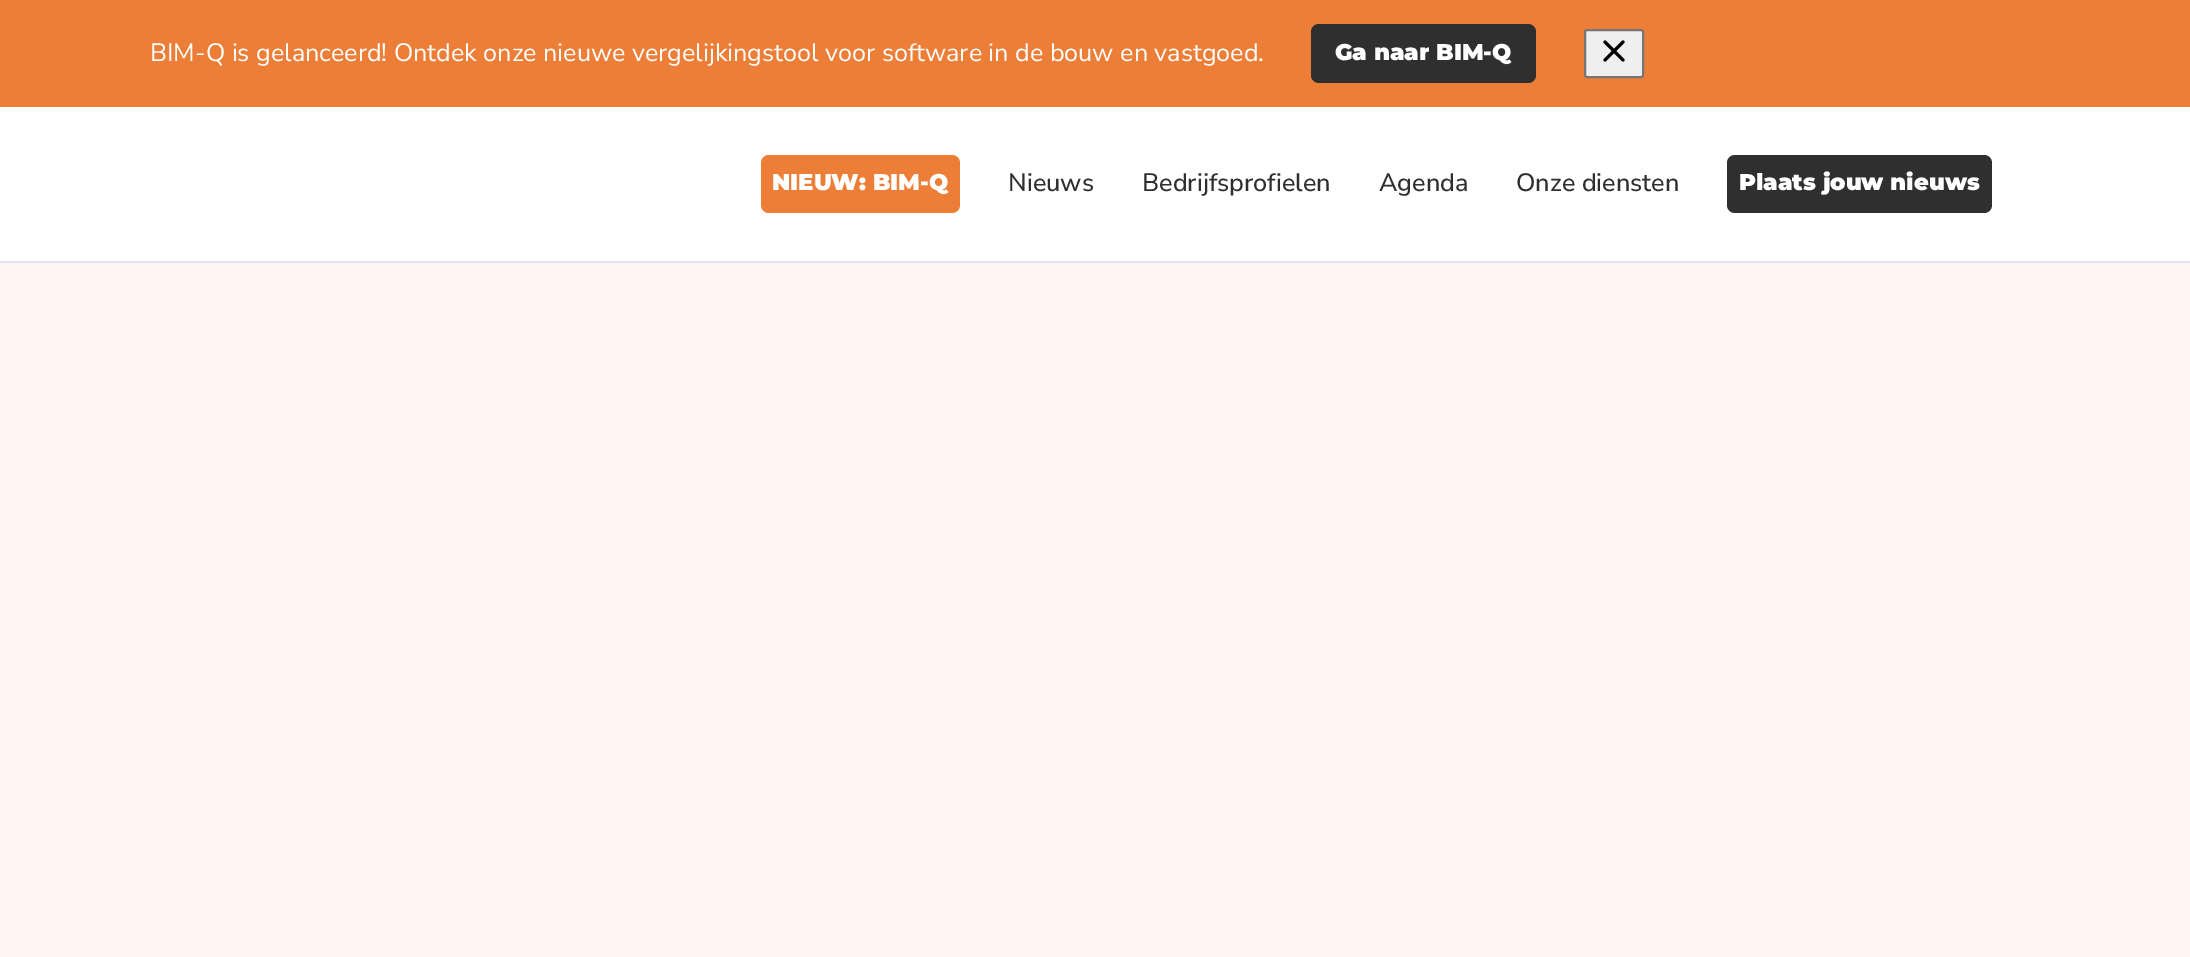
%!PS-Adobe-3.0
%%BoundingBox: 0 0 2190 957
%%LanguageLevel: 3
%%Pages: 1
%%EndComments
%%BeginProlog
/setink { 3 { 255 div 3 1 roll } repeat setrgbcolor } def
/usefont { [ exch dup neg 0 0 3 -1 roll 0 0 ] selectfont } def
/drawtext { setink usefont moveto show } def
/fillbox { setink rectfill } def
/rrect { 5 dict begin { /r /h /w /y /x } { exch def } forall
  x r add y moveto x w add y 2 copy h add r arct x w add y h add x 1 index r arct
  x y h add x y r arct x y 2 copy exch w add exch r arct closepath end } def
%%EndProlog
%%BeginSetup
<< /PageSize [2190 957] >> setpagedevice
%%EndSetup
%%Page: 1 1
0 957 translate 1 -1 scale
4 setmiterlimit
0 0 2190 957 255 255 255 fillbox
0 0 2190 107 237 126 55 fillbox
(BIM-Q is gelanceerd! Ontdek onze nieuwe vergelijkingstool voor software in de bouw en vastgoed.) 150 61 /NunitoSans-Regular 25.2 255 255 255 drawtext
47 47 47 setink
1311 24 225 59 8 rrect fill
(Ga naar BIM-Q) 1335 60 /Montserrat-Black 22.75 255 255 255 drawtext
239 239 239 setink
1585 30 58 47 2 rrect gsave fill grestore
118 118 118 setink
2 setlinewidth
stroke
0 0 0 setink
3 setlinewidth
1 setlinecap
1 setlinejoin
1623 42 moveto 1605 60 lineto 1605 42 moveto 1623 60 lineto stroke
237 126 55 setink
761 155 199 58 8 rrect fill
(NIEUW: BIM-Q) 772 190 /Montserrat-Black 22.75 255 255 255 drawtext
(Nieuws) 1008 191 /NunitoSans-Medium 25.2 47 47 47 drawtext
(Bedrijfsprofielen) 1142 191 /NunitoSans-Medium 25.2 47 47 47 drawtext
(Agenda) 1379 191 /NunitoSans-Medium 25.2 47 47 47 drawtext
(Onze diensten) 1516 191 /NunitoSans-Medium 25.2 47 47 47 drawtext
1727 155 265 58 8 rrect fill
(Plaats jouw nieuws) 1739 190 /Montserrat-Black 22.75 255 255 255 drawtext
0 263 2190 694 255 246 244 fillbox
0 261 2190 2 227 227 240 fillbox
showpage
%%EOF
